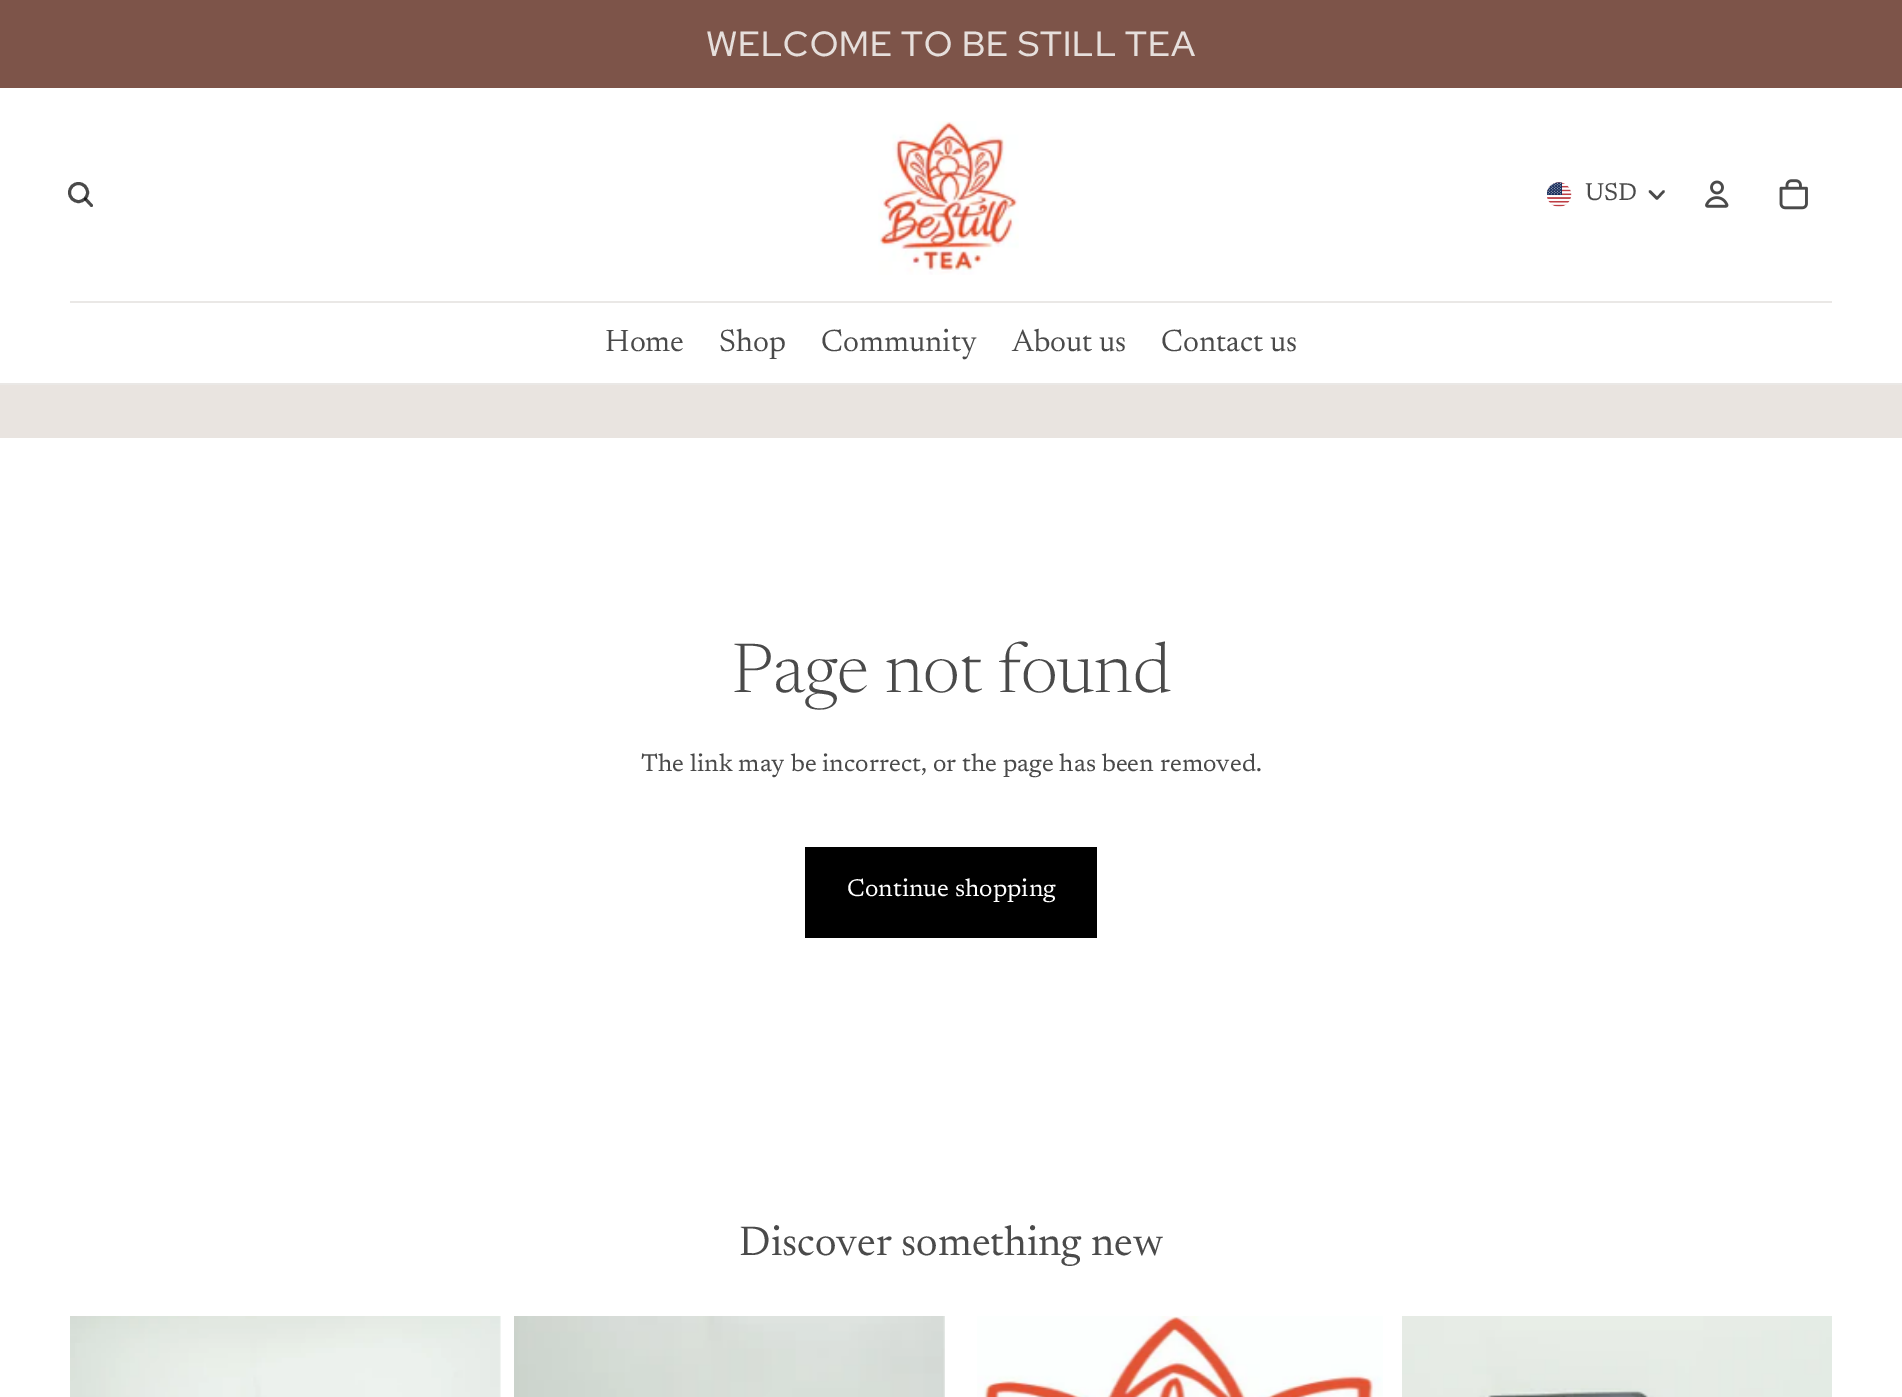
%!PS-Adobe-3.0
%%BoundingBox: 0 0 1902 1397
%%LanguageLevel: 3
%%Pages: 1
%%EndComments
%%BeginProlog
/setink { 3 { 255 div 3 1 roll } repeat setrgbcolor } def
/usefont { [ exch dup neg 0 0 3 -1 roll 0 0 ] selectfont } def
/drawtext { setink usefont moveto show } def
/fillbox { setink rectfill } def
/setalpha { dup .setfillconstantalpha .setstrokeconstantalpha } def
/disc { newpath 0 360 arc closepath } def
/drawimage { 5 dict begin { /h /w /y /x /name } { exch def } forall
  gsave x y translate w h scale
  w h 8 [w 0 0 h 0 0] name (r) file false 3 colorimage grestore end } def
%%EndProlog
%%BeginSetup
<< /PageSize [1902 1397] /PageUsesTransparency true >> setpagedevice
%%EndSetup
%%Page: 1 1
0 .pushpdf14devicefilter
0 1397 translate 1 -1 scale
4 setmiterlimit
0 0 1902 1397 255 255 255 fillbox
0 0 1902 88 125 84 73 fillbox
/RedHatDisplay-Medium 35 usefont
230 223 220 setink
706 56 moveto 1.05 0 (WELCOME TO BE STILL TEA) ashow
70 301 1762 2 234 232 230 fillbox
74 74 74 setink
2.9 setlinewidth
78.5 192.5 9 disc stroke
0.71 setalpha
0 0 0 setink
1 setlinecap
1 setlinejoin
85.5 199 moveto 91.5 205.5 lineto stroke
1 setalpha
(assets/img1.rgb) 878 121 141 154 drawimage
(assets/img2.rgb) 1547 182 25 25 drawimage
(USD) 1585 200 /Newsreader-Regular 24.5 74 74 74 drawtext
2.5 setlinewidth
1663.5 191.5 moveto 1657 198.5 lineto 1650 191.5 lineto stroke
(assets/img3.rgb) 1705 180 24 28 drawimage
(assets/img4.rgb) 1779 179 29 31 drawimage
0 383 1902 2 234 232 230 fillbox
(Home) 605 351 /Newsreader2-Regular 31.5 74 74 74 drawtext
(Shop) 719 351 /Newsreader2-Regular 31.5 74 74 74 drawtext
(Community) 821 351 /Newsreader2-Regular 31.5 74 74 74 drawtext
(About us) 1012 351 /Newsreader2-Regular 31.5 74 74 74 drawtext
(Contact us) 1161 351 /Newsreader2-Regular 31.5 74 74 74 drawtext
0 385 1902 53 233 228 224 fillbox
(Page not found) 732 692 /Newsreader-Light 70 74 74 74 drawtext
(The link may be incorrect, or the page has been removed.) 641 771 /Newsreader-Regular 24.5 74 74 74 drawtext
805 847 292 91 0 0 0 fillbox
(Continue shopping) 847 896 /Newsreader-Regular 24.5 255 255 255 drawtext
(Discover something new) 739 1255 /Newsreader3-Regular 42 74 74 74 drawtext
(assets/img5.rgb) 70 1316 431 81 drawimage
(assets/img6.rgb) 514 1316 431 81 drawimage
(assets/img7.rgb) 977 1316 406 81 drawimage
(assets/img8.rgb) 1402 1316 430 81 drawimage
.poppdf14devicefilter showpage
%%EOF
